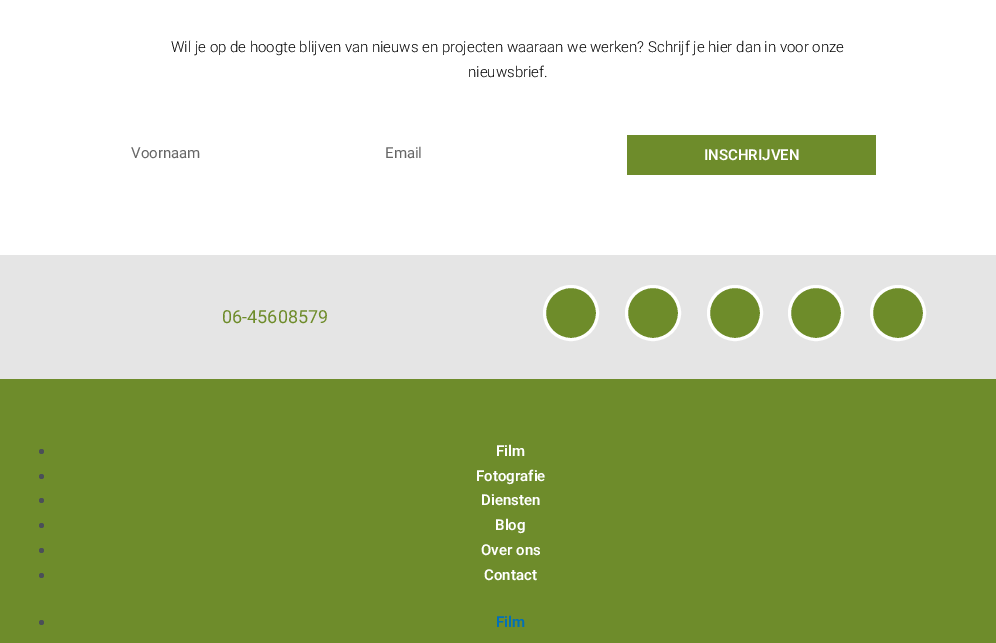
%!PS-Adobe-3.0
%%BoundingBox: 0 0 996 643
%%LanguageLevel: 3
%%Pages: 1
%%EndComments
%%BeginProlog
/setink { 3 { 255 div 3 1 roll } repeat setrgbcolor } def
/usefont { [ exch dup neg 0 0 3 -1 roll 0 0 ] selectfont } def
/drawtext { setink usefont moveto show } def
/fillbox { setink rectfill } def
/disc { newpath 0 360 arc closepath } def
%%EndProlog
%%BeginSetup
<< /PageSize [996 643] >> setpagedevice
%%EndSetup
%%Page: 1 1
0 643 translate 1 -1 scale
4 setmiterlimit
0 0 996 643 255 255 255 fillbox
(Wil je op de hoogte blijven van nieuws en projecten waaraan we werken? Schrijf je hier dan in voor onze) 171 52 /Roboto-Light 15 0 0 0 drawtext
(nieuwsbrief.) 468 77 /Roboto-Light 15 0 0 0 drawtext
(Voornaam) 131 158 /Roboto-Regular 15 102 102 102 drawtext
(Email) 385 158 /Roboto-Regular 15 102 102 102 drawtext
627 135 249 40 110 140 43 fillbox
(INSCHRIJVEN) 704 160 /Roboto-SemiBold 15 255 255 255 drawtext
0 255 996 124 229 229 229 fillbox
(06-45608579) 222 323 /Roboto-Regular 18 110 140 42 drawtext
571 313 26.5 disc gsave fill grestore
255 255 255 setink
3 setlinewidth
stroke
110 140 42 setink
653 313 26.5 disc gsave fill grestore
255 255 255 setink
stroke
110 140 42 setink
735 313 26.5 disc gsave fill grestore
255 255 255 setink
stroke
110 140 42 setink
816 313 26.5 disc gsave fill grestore
255 255 255 setink
stroke
110 140 42 setink
898 313 26.5 disc gsave fill grestore
255 255 255 setink
stroke
0 379 996 264 110 140 43 fillbox
75 79 88 setink
41.5 451.5 2.5 disc fill
(Film) 496 456 /Roboto-SemiBold 15 255 255 255 drawtext
75 79 88 setink
41.5 476.5 2.5 disc fill
(Fotografie) 476 481 /Roboto-SemiBold 15 255 255 255 drawtext
75 79 88 setink
41.5 500.5 2.5 disc fill
(Diensten) 481 505 /Roboto-SemiBold 15 255 255 255 drawtext
75 79 88 setink
41.5 525.5 2.5 disc fill
(Blog) 495 530 /Roboto-SemiBold 15 255 255 255 drawtext
75 79 88 setink
41.5 550.5 2.5 disc fill
(Over ons) 481 555 /Roboto-SemiBold 15 255 255 255 drawtext
75 79 88 setink
41.5 575.5 2.5 disc fill
(Contact) 484 580 /Roboto-SemiBold 15 255 255 255 drawtext
75 79 88 setink
41.5 622.5 2.5 disc fill
(Film) 496 627 /Roboto-SemiBold 15 1 112 185 drawtext
showpage
%%EOF
